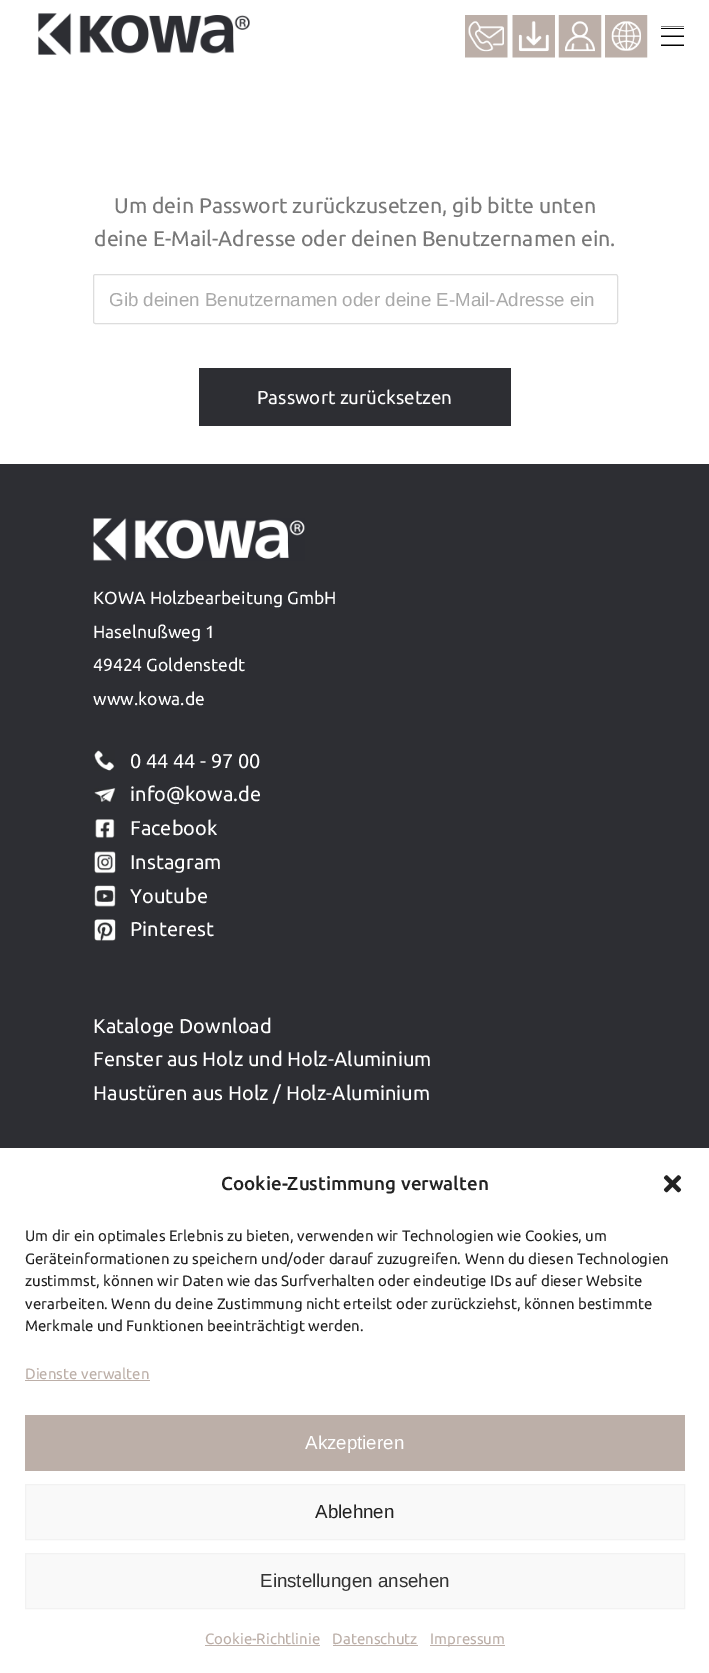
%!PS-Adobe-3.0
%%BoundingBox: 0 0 709 1673
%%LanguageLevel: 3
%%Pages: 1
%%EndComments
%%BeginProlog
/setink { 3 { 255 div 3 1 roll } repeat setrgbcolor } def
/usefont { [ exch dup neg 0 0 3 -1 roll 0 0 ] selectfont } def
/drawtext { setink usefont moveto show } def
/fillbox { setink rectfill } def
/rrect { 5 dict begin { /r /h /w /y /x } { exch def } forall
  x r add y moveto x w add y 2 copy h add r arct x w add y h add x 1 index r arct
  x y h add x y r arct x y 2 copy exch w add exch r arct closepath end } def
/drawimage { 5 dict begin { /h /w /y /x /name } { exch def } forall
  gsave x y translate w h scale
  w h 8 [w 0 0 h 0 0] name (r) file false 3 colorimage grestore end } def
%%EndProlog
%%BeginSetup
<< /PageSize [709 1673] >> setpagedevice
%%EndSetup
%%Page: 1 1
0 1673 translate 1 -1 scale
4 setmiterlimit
0 0 709 1673 255 255 255 fillbox
(assets/img1.rgb) 38 13 212 42 drawimage
661 28 23 1 0 0 0 fillbox
661 26 23 1 128 128 128 fillbox
661 36 23 1 0 0 0 fillbox
661 35 23 1 128 128 128 fillbox
661 45 23 1 0 0 0 fillbox
661 44 23 1 128 128 128 fillbox
(assets/img2.rgb) 465 15 43 43 drawimage
(assets/img3.rgb) 512 15 43 43 drawimage
(assets/img4.rgb) 558 15 44 43 drawimage
(assets/img5.rgb) 605 15 43 43 drawimage
(Um dein Passwort zurückzusetzen, gib bitte unten) 114 213 /Ubuntu-Regular 21.25 119 119 119 drawtext
(deine E-Mail-Adresse oder deinen Benutzernamen ein.) 94 246 /Ubuntu-Regular 21.25 119 119 119 drawtext
221 221 221 setink
93.5 274.5 524 49 2 rrect stroke
(Gib deinen Benutzernamen oder deine E-Mail-Adresse ein) 109 306 /LiberationSans-Regular 18.75 170 170 170 drawtext
199 368 312 58 45 46 51 fillbox
(Passwort zurücksetzen) 257 404 /Ubuntu-Regular 18.75 255 255 255 drawtext
0 464 709 684 45 46 51 fillbox
(assets/img6.rgb) 93 518 212 43 drawimage
(KOWA Holzbearbeitung GmbH) 93 604 /Ubuntu-Regular 17.5 255 255 255 drawtext
(Haselnußweg 1) 93 638 /Ubuntu-Regular 17.5 255 255 255 drawtext
(49424 Goldenstedt) 93 671 /Ubuntu-Regular 17.5 255 255 255 drawtext
(www.kowa.de) 93 705 /Ubuntu-Regular 17.5 255 255 255 drawtext
(assets/img7.rgb) 94 750 21 21 drawimage
(0 44 44 - 97 00) 130 768 /Ubuntu-Regular 20 255 255 255 drawtext
(assets/img8.rgb) 94 788 22 14 drawimage
(info@kowa.de) 130 801 /Ubuntu-Regular 20 255 255 255 drawtext
(assets/img9.rgb) 95 819 20 19 drawimage
(Facebook) 130 835 /Ubuntu-Regular 20 255 255 255 drawtext
(assets/img10.rgb) 94 851 22 23 drawimage
(Instagram) 130 869 /Ubuntu-Regular 20 255 255 255 drawtext
(assets/img11.rgb) 94 885 22 22 drawimage
(Youtube) 130 903 /Ubuntu-Regular 20 255 255 255 drawtext
(assets/img12.rgb) 94 919 22 22 drawimage
(Pinterest) 130 936 /Ubuntu-Regular 20 255 255 255 drawtext
(Kataloge Download) 93 1033 /Ubuntu-Regular 20 255 255 255 drawtext
(Fenster aus Holz und Holz-Aluminium) 93 1066 /Ubuntu-Regular 20 255 255 255 drawtext
(Haustüren aus Holz / Holz-Aluminium) 93 1100 /Ubuntu-Regular 20 255 255 255 drawtext
(Cookie-Zustimmung verwalten) 221 1190 /Ubuntu-Medium 18.75 34 34 34 drawtext
(assets/img13.rgb) 663 1175 19 18 drawimage
(Um dir ein optimales Erlebnis zu bieten, verwenden wir Technologien wie Cookies, um) 25 1241 /Ubuntu-Regular 15 34 34 34 drawtext
(Geräteinformationen zu speichern und/oder darauf zuzugreifen. Wenn du diesen Technologien) 25 1264 /Ubuntu-Regular 15 34 34 34 drawtext
(zustimmst, können wir Daten wie das Surfverhalten oder eindeutige IDs auf dieser Website) 25 1286 /Ubuntu-Regular 15 34 34 34 drawtext
(verarbeiten. Wenn du deine Zustimmung nicht erteilst oder zurückziehst, können bestimmte) 25 1309 /Ubuntu-Regular 15 34 34 34 drawtext
(Merkmale und Funktionen beeinträchtigt werden.) 25 1331 /Ubuntu-Regular 15 34 34 34 drawtext
(Dienste verwalten) 25 1379 /Ubuntu-Regular 15 188 175 168 drawtext
25 1380 125 1 188 175 168 fillbox
25 1415 660 56 188 175 168 fillbox
(Akzeptieren) 305 1449 /LiberationSans-Regular 18.75 255 255 255 drawtext
249 249 249 setink
25.5 1484.5 moveto 684.5 1484.5 lineto 684.5 1539.5 lineto 25.5 1539.5 lineto closepath gsave fill grestore
242 242 242 setink
stroke
(Ablehnen) 315 1518 /LiberationSans-Regular 18.75 34 34 34 drawtext
249 249 249 setink
25.5 1553.5 moveto 684.5 1553.5 lineto 684.5 1608.5 lineto 25.5 1608.5 lineto closepath gsave fill grestore
242 242 242 setink
stroke
(Einstellungen ansehen) 260 1587 /LiberationSans-Regular 18.75 51 51 51 drawtext
(Cookie-Richtlinie) 205 1644 /Ubuntu-Regular 15 188 175 168 drawtext
205 1645 115 1 188 175 168 fillbox
(Datenschutz) 332 1644 /Ubuntu-Regular 15 188 175 168 drawtext
333 1645 85 1 188 175 168 fillbox
430 1645 75 1 188 175 168 fillbox
(Impressum) 430 1644 /Ubuntu-Regular 15 188 175 168 drawtext
showpage
%%EOF
